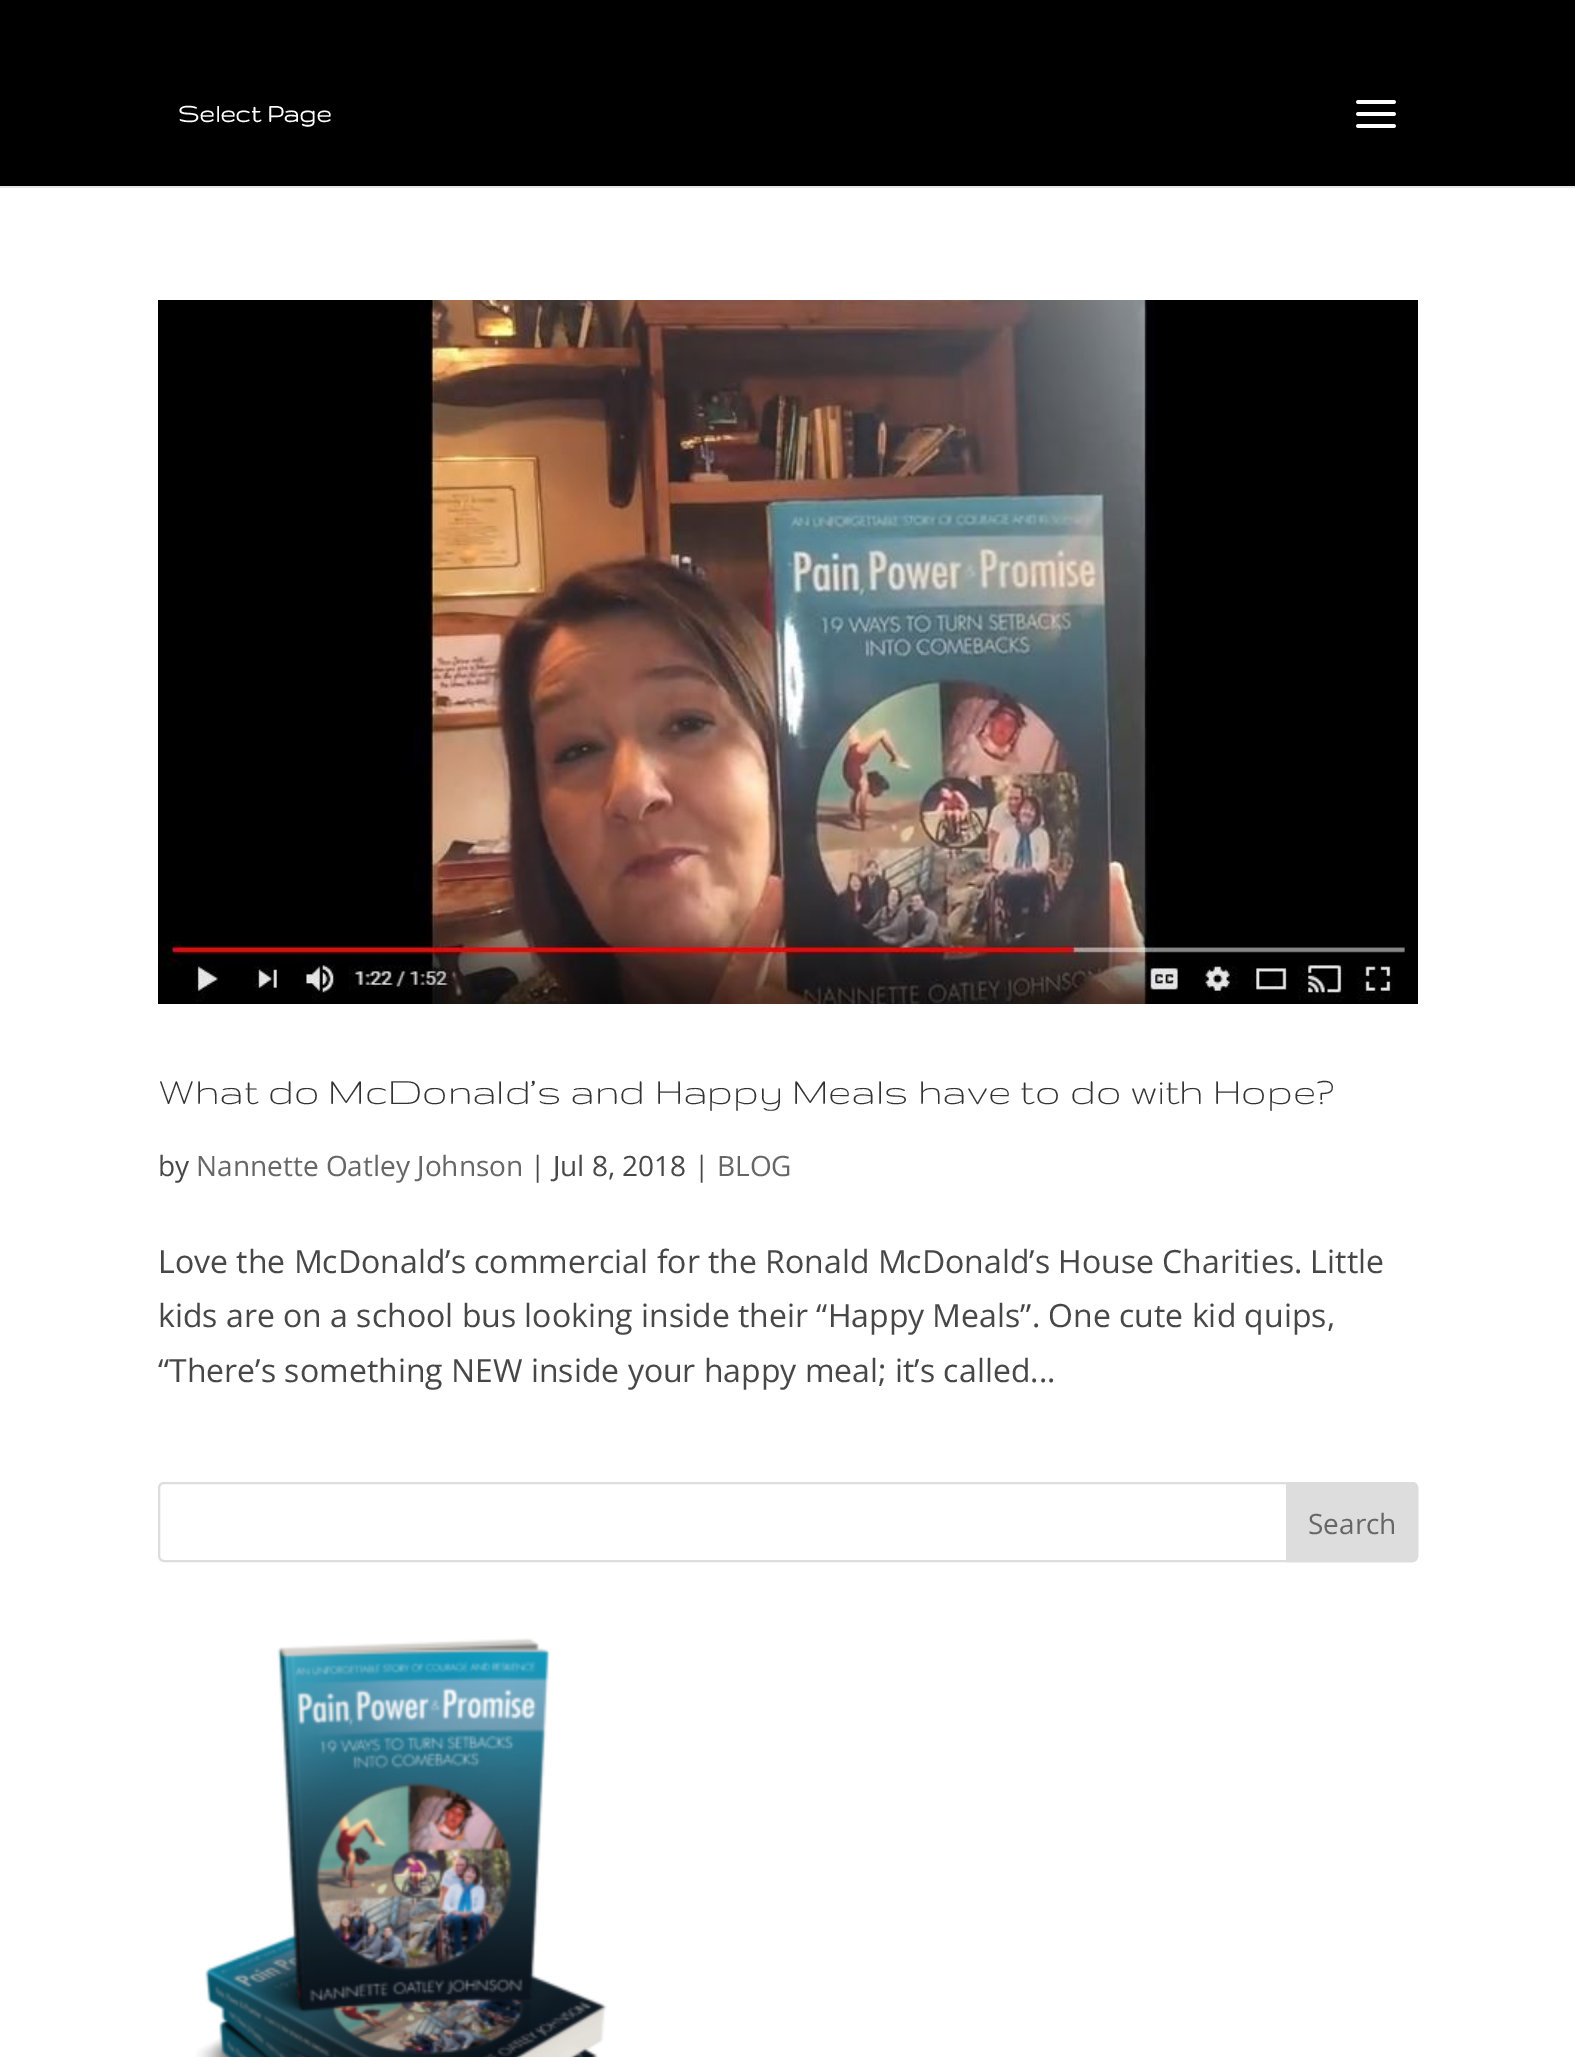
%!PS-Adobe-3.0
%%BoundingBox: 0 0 1575 2057
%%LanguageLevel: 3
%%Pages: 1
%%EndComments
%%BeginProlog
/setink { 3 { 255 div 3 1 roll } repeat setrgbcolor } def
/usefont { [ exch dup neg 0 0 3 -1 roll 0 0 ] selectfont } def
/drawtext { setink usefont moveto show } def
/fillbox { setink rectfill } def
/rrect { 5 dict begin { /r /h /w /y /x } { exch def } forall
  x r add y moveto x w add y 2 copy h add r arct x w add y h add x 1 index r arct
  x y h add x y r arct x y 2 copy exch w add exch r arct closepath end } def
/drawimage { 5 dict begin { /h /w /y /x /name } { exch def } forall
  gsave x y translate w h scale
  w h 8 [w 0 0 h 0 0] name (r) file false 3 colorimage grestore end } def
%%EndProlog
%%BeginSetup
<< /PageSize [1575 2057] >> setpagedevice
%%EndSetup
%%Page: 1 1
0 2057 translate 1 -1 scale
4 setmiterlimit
0 0 1575 2057 255 255 255 fillbox
0 186 1575 2 230 230 230 fillbox
0 0 1575 186 0 0 0 fillbox
(Select Page) 178 122 /Gruppo-Bold 28 255 255 255 drawtext
(assets/img1.rgb) 1356 100 40 28 drawimage
(assets/img2.rgb) 158 300 1260 704 drawimage
(What do McDonald’s and Happy Meals have to do with Hope?) 158 1104 /Gruppo-Regular 42 51 51 51 drawtext
(by) 158 1176 /OpenSans-Regular 28 71 71 71 drawtext
(Nannette Oatley Johnson) 196 1176 /OpenSans-Regular 28 102 102 102 drawtext
(| Jul 8, 2018 |) 530 1176 /OpenSans-Regular 28 71 71 71 drawtext
(BLOG) 717 1176 /OpenSans-Regular 28 102 102 102 drawtext
(Love the McDonald’s commercial for the Ronald McDonald’s House Charities. Little) 158 1273 /OpenSans-Regular 32 71 71 71 drawtext
(kids are on a school bus looking inside their “Happy Meals”. One cute kid quips,) 158 1327 /OpenSans-Regular 32 71 71 71 drawtext
(“There’s something NEW inside your happy meal; it’s called...) 158 1382 /OpenSans-Regular 32 71 71 71 drawtext
221 221 221 setink
2 setlinewidth
159 1483 1258 78 5 rrect stroke
1287 1483 moveto 1412 1483 lineto 1415 1483 1417 1485 1417 1488 curveto 1417 1556 lineto 1417 1559 1415 1561 1412 1561 curveto 1287 1561 lineto closepath gsave fill grestore
stroke
(Search) 1308 1534 /OpenSans-Regular 28 102 102 102 drawtext
(assets/img3.rgb) 196 1638 411 419 drawimage
showpage
%%EOF
